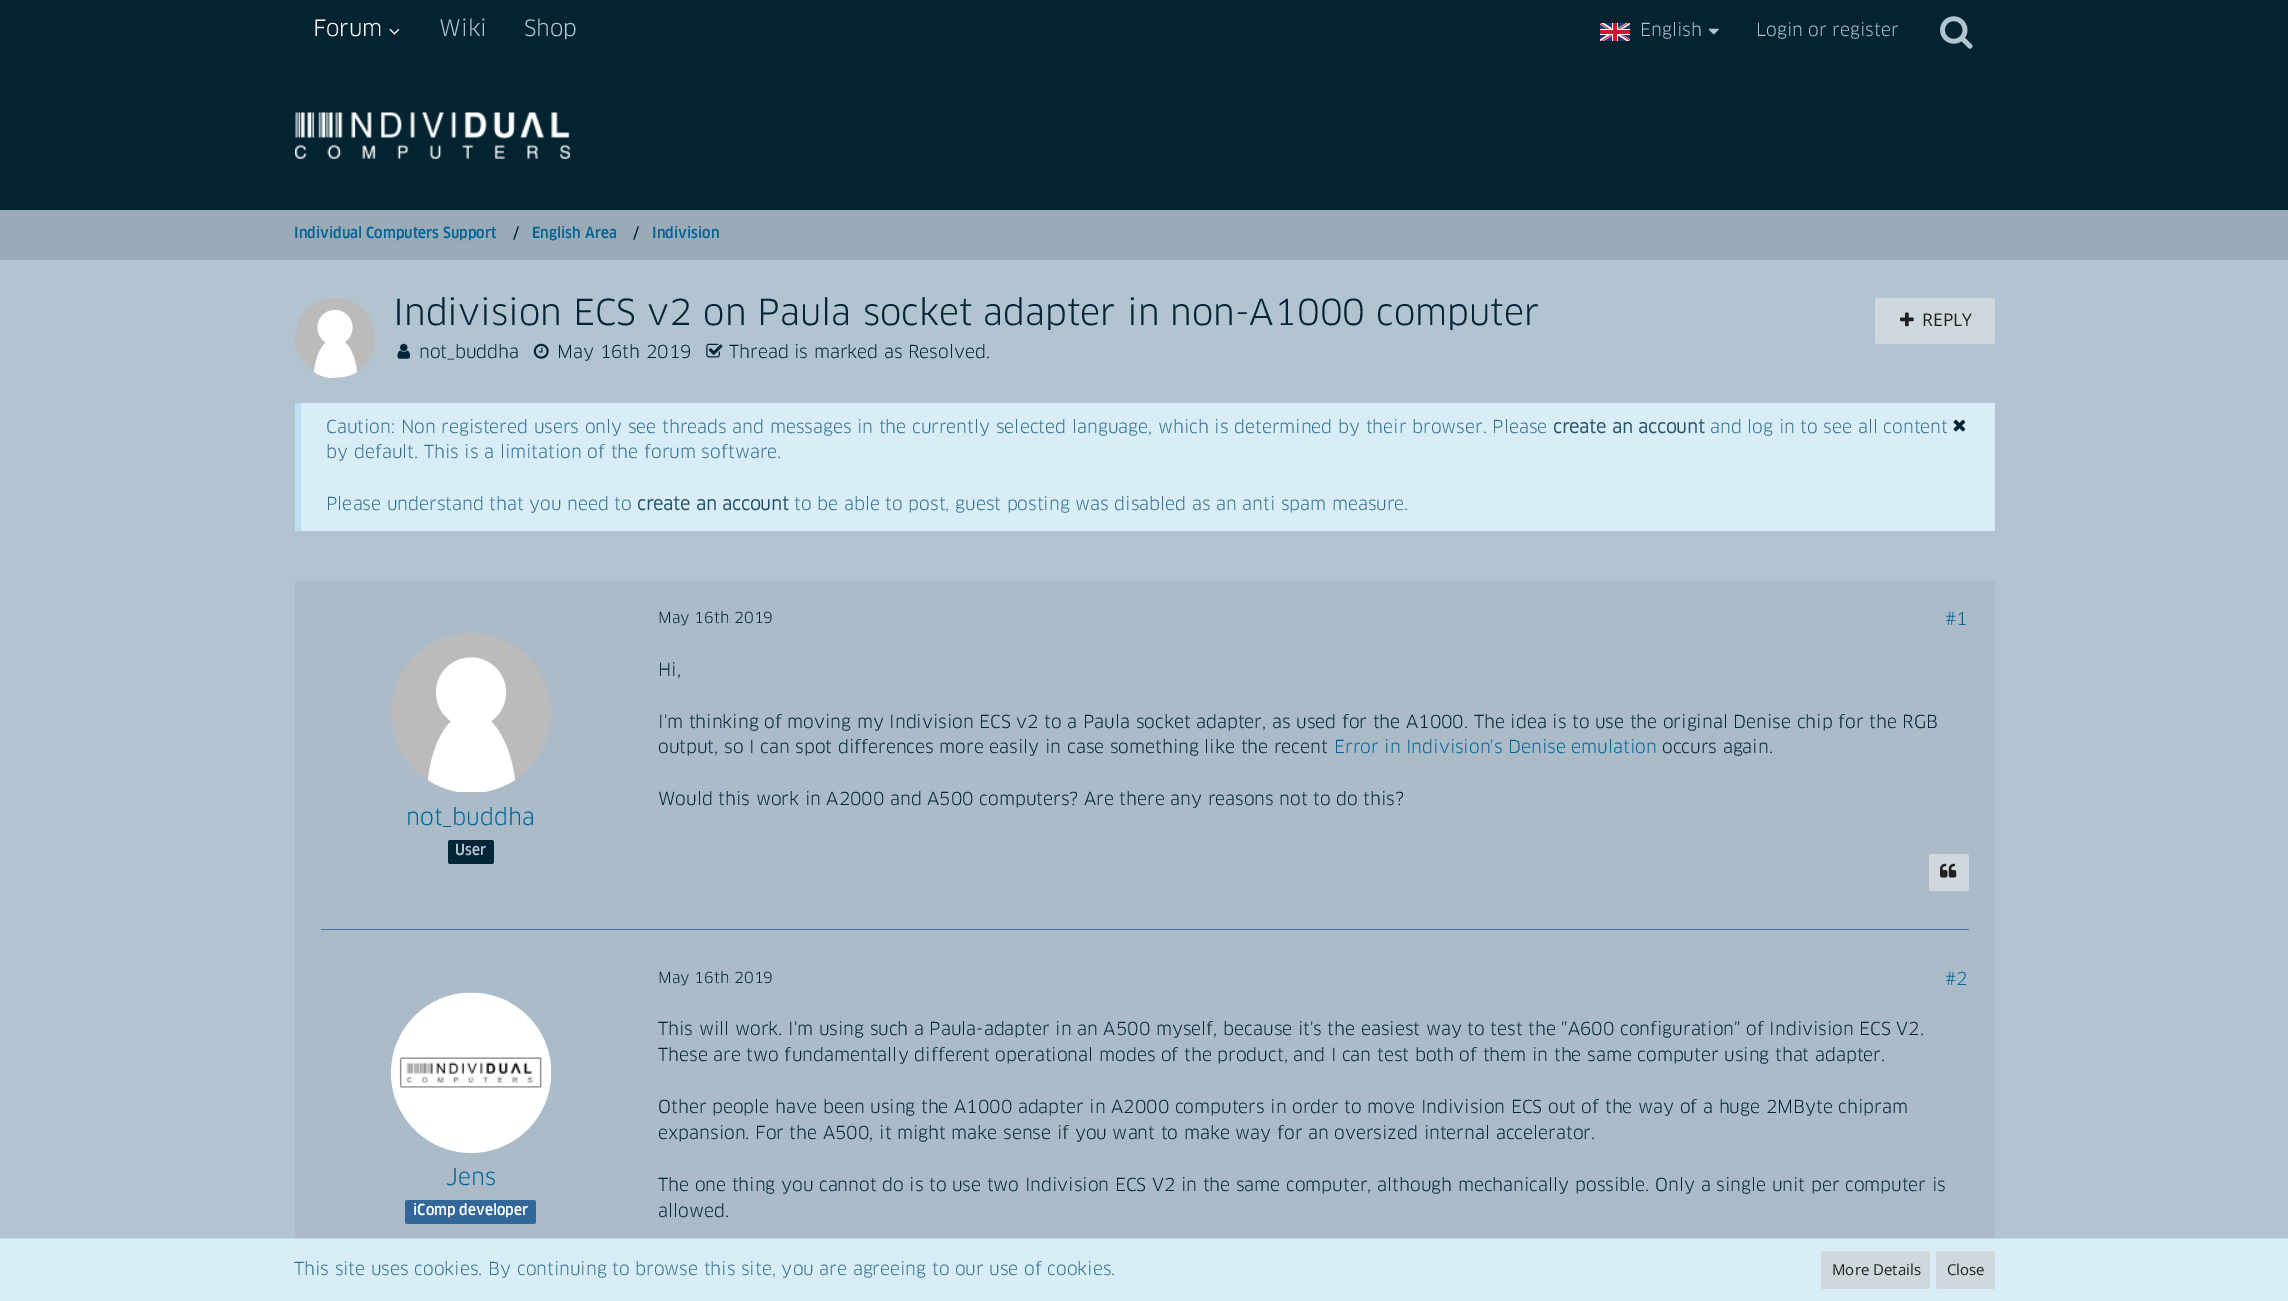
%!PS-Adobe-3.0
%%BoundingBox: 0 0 2288 1301
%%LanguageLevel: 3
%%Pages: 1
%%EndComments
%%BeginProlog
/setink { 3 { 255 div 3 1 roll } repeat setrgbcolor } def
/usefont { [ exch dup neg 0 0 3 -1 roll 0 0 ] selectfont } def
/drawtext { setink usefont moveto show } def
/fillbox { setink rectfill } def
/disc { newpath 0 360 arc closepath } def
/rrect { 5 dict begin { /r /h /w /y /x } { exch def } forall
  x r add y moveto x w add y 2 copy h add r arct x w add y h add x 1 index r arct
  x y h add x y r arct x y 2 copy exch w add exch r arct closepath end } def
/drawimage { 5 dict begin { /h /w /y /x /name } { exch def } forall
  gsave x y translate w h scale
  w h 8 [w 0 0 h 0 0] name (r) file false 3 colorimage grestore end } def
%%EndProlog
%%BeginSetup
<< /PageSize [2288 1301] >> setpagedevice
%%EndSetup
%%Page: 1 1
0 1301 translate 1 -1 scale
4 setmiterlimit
0 0 2288 1301 178 196 208 fillbox
0 0 2288 210 4 35 48 fillbox
(Forum) 313 36 /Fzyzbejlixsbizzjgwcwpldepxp-Regular 22 255 255 255 drawtext
(assets/img1.rgb) 389 28 11 7 drawimage
(Wiki) 439 36 /Fzyzbejlixsbizzjgwcwpldepxp-Regular 22 178 196 208 drawtext
(Shop) 524 36 /Fzyzbejlixsbizzjgwcwpldepxp-Regular 22 178 196 208 drawtext
(assets/img2.rgb) 1600 23 30 18 drawimage
(English) 1640 36 /Fzyzbejlixsbizzjgwcwpldepxp-Regular 17.5 178 196 208 drawtext
(assets/img3.rgb) 1708 28 11 7 drawimage
(Login or register) 1756 36 /Fzyzbejlixsbizzjgwcwpldepxp-Regular 17.5 178 196 208 drawtext
(assets/img4.rgb) 1940 16 33 33 drawimage
(assets/img5.rgb) 295 112 275 47 drawimage
0 210 2288 50 154 171 183 fillbox
(Individual Computers Support) 294 238 /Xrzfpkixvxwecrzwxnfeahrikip-Medium 15 0 100 153 drawtext
(/) 513 238 /Xrzfpkixvxwecrzwxnfeahrikip-Medium 15 3 37 55 drawtext
(English Area) 532 238 /Xrzfpkixvxwecrzwxnfeahrikip-Medium 15 0 100 153 drawtext
(/) 633 238 /Xrzfpkixvxwecrzwxnfeahrikip-Medium 15 3 37 55 drawtext
(Indivision) 652 238 /Xrzfpkixvxwecrzwxnfeahrikip-Medium 15 0 100 153 drawtext
187 187 187 setink
335 338 40 disc fill
255 255 255 setink
330 378 moveto 324 377 318 375 314 372 curveto 319 327 352 327 357 372 curveto 347 378 340 377 330 378 curveto closepath fill
335 327.5 17.5 disc fill
(Indivision ECS v2 on Paula socket adapter in non-A1000 computer) 393 325 /Fzyzbejlixsbizzjgwcwpldepxp-Regular 35 3 37 55 drawtext
(assets/img6.rgb) 397 343 13 16 drawimage
(not_buddha) 419 358 /Fzyzbejlixsbizzjgwcwpldepxp-Regular 17.5 3 37 55 drawtext
(assets/img7.rgb) 533 343 16 16 drawimage
(May 16th 2019) 557 358 /Fzyzbejlixsbizzjgwcwpldepxp-Regular 17.5 3 37 55 drawtext
(assets/img8.rgb) 706 343 17 15 drawimage
(Thread is marked as Resolved.) 729 358 /Fzyzbejlixsbizzjgwcwpldepxp-Regular 17.5 3 37 55 drawtext
207 216 220 setink
1875 298 120 46 2.5 rrect fill
(assets/img9.rgb) 1900 312 14 15 drawimage
(REPLY) 1922 326 /OpenSans-Regular 17.5 33 33 33 drawtext
301 403 1694 128 217 237 247 fillbox
295 403 6 128 188 223 241 fillbox
(Caution: Non registered users only see threads and messages in the currently selected language, which is determined by their browser. Please) 326 433 /Fzyzbejlixsbizzjgwcwpldepxp-Regular 17.5 49 112 143 drawtext
(create an account) 1553 433 /Fzyzbejlixsbizzjgwcwpldepxp-Bold 17.5 36 82 105 drawtext
(and log in to see all content) 1710 433 /Fzyzbejlixsbizzjgwcwpldepxp-Regular 17.5 49 112 143 drawtext
(by default. This is a limitation of the forum software.) 326 458 /Fzyzbejlixsbizzjgwcwpldepxp-Regular 17.5 49 112 143 drawtext
(assets/img10.rgb) 1953 419 13 13 drawimage
(Please understand that you need to) 326 510 /Fzyzbejlixsbizzjgwcwpldepxp-Regular 17.5 49 112 143 drawtext
(create an account) 637 510 /Fzyzbejlixsbizzjgwcwpldepxp-Bold 17.5 36 82 105 drawtext
(to be able to post, guest posting was disabled as an anti spam measure.) 794 510 /Fzyzbejlixsbizzjgwcwpldepxp-Regular 17.5 49 112 143 drawtext
295 581 1700 657 171 188 200 fillbox
321 929 1648 1 65 121 173 fillbox
(May 16th 2019) 658 623 /Fzyzbejlixsbizzjgwcwpldepxp-Regular 15 3 37 55 drawtext
(#1) 1945 625 /Fzyzbejlixsbizzjgwcwpldepxp-Regular 17.5 0 100 153 drawtext
(Hi,) 658 676 /Fzyzbejlixsbizzjgwcwpldepxp-Regular 17.5 3 37 55 drawtext
(I'm thinking of moving my Indivision ECS v2 to a Paula socket adapter, as used for the A1000. The idea is to use the original Denise chip for the RGB) 658 728 /Fzyzbejlixsbizzjgwcwpldepxp-Regular 17.5 3 37 55 drawtext
(output, so I can spot differences more easily in case something like the recent) 658 753 /Fzyzbejlixsbizzjgwcwpldepxp-Regular 17.5 3 37 55 drawtext
(Error in Indivision's Denise emulation) 1334 753 /Fzyzbejlixsbizzjgwcwpldepxp-Regular 17.5 0 100 153 drawtext
(occurs again.) 1662 753 /Fzyzbejlixsbizzjgwcwpldepxp-Regular 17.5 3 37 55 drawtext
(Would this work in A2000 and A500 computers? Are there any reasons not to do this?) 658 805 /Fzyzbejlixsbizzjgwcwpldepxp-Regular 17.5 3 37 55 drawtext
207 216 220 setink
1929 854 40 37 2.5 rrect fill
(assets/img11.rgb) 1940 863 17 15 drawimage
187 187 187 setink
471 713 80 disc fill
255 255 255 setink
458 792 moveto 447 790 437 786 428 780 curveto 432 741 450 712 471 712 curveto 492 712 510 741 515 780 curveto 506 786 495 790 484 792 curveto closepath fill
471 692.5 35 disc fill
(not_buddha) 406 825 /Fzyzbejlixsbizzjgwcwpldepxp-Regular 22.5 0 100 153 drawtext
3 37 55 setink
448 840 46 24 2.5 rrect fill
(User) 455 855 /Xrzfpkixvxwecrzwxnfeahrikip-Medium 15 178 196 208 drawtext
255 255 255 setink
471 1073 80 disc fill
(assets/img12.rgb) 391 992 161 161 drawimage
(Jens) 446 1185 /Fzyzbejlixsbizzjgwcwpldepxp-Regular 22.5 0 100 153 drawtext
51 102 153 setink
405 1200 131 24 2.5 rrect fill
(iComp developer) 413 1215 /Xrzfpkixvxwecrzwxnfeahrikip-Medium 15 255 255 255 drawtext
(May 16th 2019) 658 983 /Fzyzbejlixsbizzjgwcwpldepxp-Regular 15 3 37 55 drawtext
(#2) 1945 985 /Fzyzbejlixsbizzjgwcwpldepxp-Regular 17.5 0 100 153 drawtext
(This will work. I'm using such a Paula-adapter in an A500 myself, because it's the easiest way to test the "A600 configuration" of Indivision ECS V2.) 658 1035 /Fzyzbejlixsbizzjgwcwpldepxp-Regular 17.5 3 37 55 drawtext
(These are two fundamentally different operational modes of the product, and I can test both of them in the same computer using that adapter.) 658 1061 /Fzyzbejlixsbizzjgwcwpldepxp-Regular 17.5 3 37 55 drawtext
(Other people have been using the A1000 adapter in A2000 computers in order to move Indivision ECS out of the way of a huge 2MByte chipram) 658 1113 /Fzyzbejlixsbizzjgwcwpldepxp-Regular 17.5 3 37 55 drawtext
(expansion. For the A500, it might make sense if you want to make way for an oversized internal accelerator.) 658 1139 /Fzyzbejlixsbizzjgwcwpldepxp-Regular 17.5 3 37 55 drawtext
(The one thing you cannot do is to use two Indivision ECS V2 in the same computer, although mechanically possible. Only a single unit per computer is) 658 1191 /Fzyzbejlixsbizzjgwcwpldepxp-Regular 17.5 3 37 55 drawtext
(allowed.) 658 1217 /Fzyzbejlixsbizzjgwcwpldepxp-Regular 17.5 3 37 55 drawtext
0 1239 2288 62 217 237 247 fillbox
0 1238 2288 1 188 223 241 fillbox
(This site uses cookies. By continuing to browse this site, you are agreeing to our use of cookies.) 294 1275 /Fzyzbejlixsbizzjgwcwpldepxp-Regular 17.5 49 112 143 drawtext
207 216 220 setink
1821 1251 109 38 2.5 rrect fill
(More Details) 1832 1275 /OpenSans-Regular 15 33 33 33 drawtext
207 216 220 setink
1936 1251 59 38 2.5 rrect fill
(Close) 1947 1275 /OpenSans-Regular 15 33 33 33 drawtext
showpage
%%EOF
